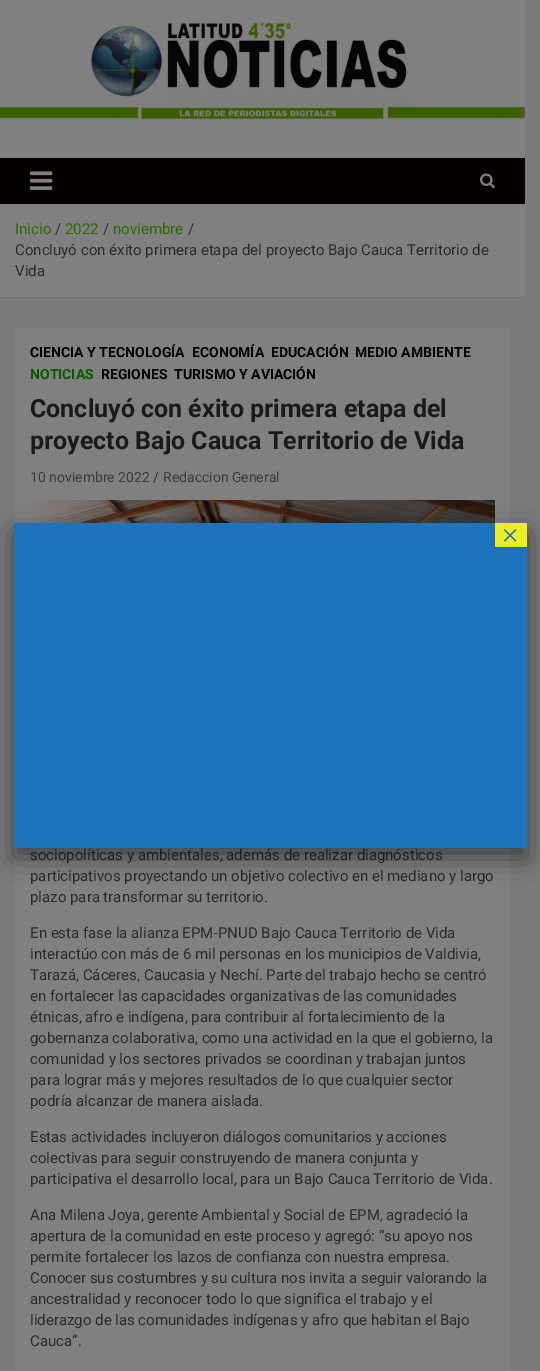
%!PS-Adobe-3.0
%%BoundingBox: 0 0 540 1371
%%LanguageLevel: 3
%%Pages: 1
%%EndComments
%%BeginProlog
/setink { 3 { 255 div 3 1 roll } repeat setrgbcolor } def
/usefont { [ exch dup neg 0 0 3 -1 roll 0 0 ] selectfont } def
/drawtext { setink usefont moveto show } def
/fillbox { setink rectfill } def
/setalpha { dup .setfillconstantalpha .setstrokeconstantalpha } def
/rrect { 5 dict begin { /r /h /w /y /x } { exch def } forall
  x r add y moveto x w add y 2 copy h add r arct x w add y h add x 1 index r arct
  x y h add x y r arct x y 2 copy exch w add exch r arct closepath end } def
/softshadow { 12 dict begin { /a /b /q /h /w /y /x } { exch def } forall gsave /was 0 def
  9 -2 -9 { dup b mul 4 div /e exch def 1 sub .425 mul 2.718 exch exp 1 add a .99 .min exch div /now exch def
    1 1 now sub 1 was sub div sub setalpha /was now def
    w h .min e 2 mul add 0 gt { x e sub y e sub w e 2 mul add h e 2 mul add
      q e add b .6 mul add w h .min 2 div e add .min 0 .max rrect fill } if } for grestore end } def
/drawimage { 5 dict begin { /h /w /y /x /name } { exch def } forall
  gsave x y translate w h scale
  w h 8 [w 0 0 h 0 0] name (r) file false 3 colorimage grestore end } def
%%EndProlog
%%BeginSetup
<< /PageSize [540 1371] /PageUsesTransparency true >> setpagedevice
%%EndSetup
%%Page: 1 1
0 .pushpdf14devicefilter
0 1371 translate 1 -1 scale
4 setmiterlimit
0 0 540 1371 122 122 122 fillbox
(assets/img1.rgb) 0 0 525 126 drawimage
0 126 525 32 128 128 128 fillbox
0 158 525 46 5 0 0 fillbox
(assets/img2.rgb) 30 171 23 19 drawimage
(assets/img3.rgb) 480 173 15 16 drawimage
0 204 525 93 128 128 128 fillbox
0 297 525 1 115 115 115 fillbox
(Inicio) 15 234 /Roboto-Regular 15 45 107 0 drawtext
(/) 55 234 /Roboto-Regular 15 43 43 43 drawtext
(2022) 65 234 /Roboto-Regular 15 45 107 0 drawtext
(/) 103 234 /Roboto-Regular 15 43 43 43 drawtext
(noviembre) 113 234 /Roboto-Regular 15 45 107 0 drawtext
(/) 188 234 /Roboto-Regular 15 43 43 43 drawtext
(Concluyó con éxito primera etapa del proyecto Bajo Cauca Territorio de) 15 255 /Roboto-Regular 15 43 43 43 drawtext
(Vida) 15 276 /Roboto-Regular 15 43 43 43 drawtext
15 328 495 1043 128 128 128 fillbox
(CIENCIA Y TECNOLOGÍA) 30 357 /Roboto-Bold 14 0 0 0 drawtext
(ECONOMÍA) 192 357 /Roboto-Bold 14 0 0 0 drawtext
(EDUCACIÓN) 271 357 /Roboto-Bold 14 0 0 0 drawtext
(MEDIO AMBIENTE) 355 357 /Roboto-Bold 14 0 0 0 drawtext
(NOTICIAS) 30 379 /Roboto-Bold 14 10 87 0 drawtext
(REGIONES) 101 379 /Roboto-Bold 14 0 0 0 drawtext
(TURISMO Y AVIACIÓN) 174 379 /Roboto-Bold 14 0 0 0 drawtext
(Concluyó con éxito primera etapa del) 30 417 /Roboto-Bold 25 26 26 26 drawtext
(proyecto Bajo Cauca Territorio de Vida) 30 449 /Roboto-Bold 25 26 26 26 drawtext
(10 noviembre 2022) 30 482 /Roboto-Regular 14 60 60 60 drawtext
(/) 153 482 /Roboto-Regular 14 43 43 43 drawtext
(Redaccion General) 163 482 /Roboto-Regular 14 60 60 60 drawtext
(assets/img4.rgb) 30 500 465 23 drawimage
(sociopolíticas y ambientales, además de realizar diagnósticos) 30 860 /Roboto-Regular 15 43 43 43 drawtext
(participativos proyectando un objetivo colectivo en el mediano y largo) 30 881 /Roboto-Regular 15 43 43 43 drawtext
(plazo para transformar su territorio.) 30 902 /Roboto-Regular 15 43 43 43 drawtext
(En esta fase la alianza EPM-PNUD Bajo Cauca Territorio de Vida) 30 938 /Roboto-Regular 15 43 43 43 drawtext
(interactúo con más de 6 mil personas en los municipios de Valdivia,) 30 959 /Roboto-Regular 15 43 43 43 drawtext
(Tarazá, Cáceres, Caucasia y Nechí. Parte del trabajo hecho se centró) 30 980 /Roboto-Regular 15 43 43 43 drawtext
(en fortalecer las capacidades organizativas de las comunidades) 30 1001 /Roboto-Regular 15 43 43 43 drawtext
(étnicas, afro e indígena, para contribuir al fortalecimiento de la) 30 1022 /Roboto-Regular 15 43 43 43 drawtext
(gobernanza colaborativa, como una actividad en la que el gobierno, la) 30 1043 /Roboto-Regular 15 43 43 43 drawtext
(comunidad y los sectores privados se coordinan y trabajan juntos) 30 1064 /Roboto-Regular 15 43 43 43 drawtext
(para lograr más y mejores resultados de lo que cualquier sector) 30 1085 /Roboto-Regular 15 43 43 43 drawtext
(podría alcanzar de manera aislada.) 30 1106 /Roboto-Regular 15 43 43 43 drawtext
(Estas actividades incluyeron diálogos comunitarios y acciones) 30 1142 /Roboto-Regular 15 43 43 43 drawtext
(colectivas para seguir construyendo de manera conjunta y) 30 1163 /Roboto-Regular 15 43 43 43 drawtext
(participativa el desarrollo local, para un Bajo Cauca Territorio de Vida.) 30 1184 /Roboto-Regular 15 43 43 43 drawtext
(Ana Milena Joya, gerente Ambiental y Social de EPM, agradeció la) 30 1220 /Roboto-Regular 15 43 43 43 drawtext
(apertura de la comunidad en este proceso y agregó: “su apoyo nos) 30 1241 /Roboto-Regular 15 43 43 43 drawtext
(permite fortalecer los lazos de confianza con nuestra empresa.) 30 1262 /Roboto-Regular 15 43 43 43 drawtext
(Conocer sus costumbres y su cultura nos invita a seguir valorando la) 30 1283 /Roboto-Regular 15 43 43 43 drawtext
(ancestralidad y reconocer todo lo que significa el trabajo y el) 30 1304 /Roboto-Regular 15 43 43 43 drawtext
(liderazgo de las comunidades indígenas y afro que habitan el Bajo) 30 1325 /Roboto-Regular 15 43 43 43 drawtext
(Cauca”.) 30 1346 /Roboto-Regular 15 43 43 43 drawtext
2 2 2 setink
14 533 513 325 0 12.5 0.5 softshadow
14 523 513 325 30 115 190 fillbox
2 2 2 setink
494 524 32 24 0 0.5 0.1 softshadow
495 523 32 24 238 238 34 fillbox
(×) 501 546 /LiberationSerif-Regular 32 30 115 190 drawtext
.poppdf14devicefilter showpage
%%EOF
